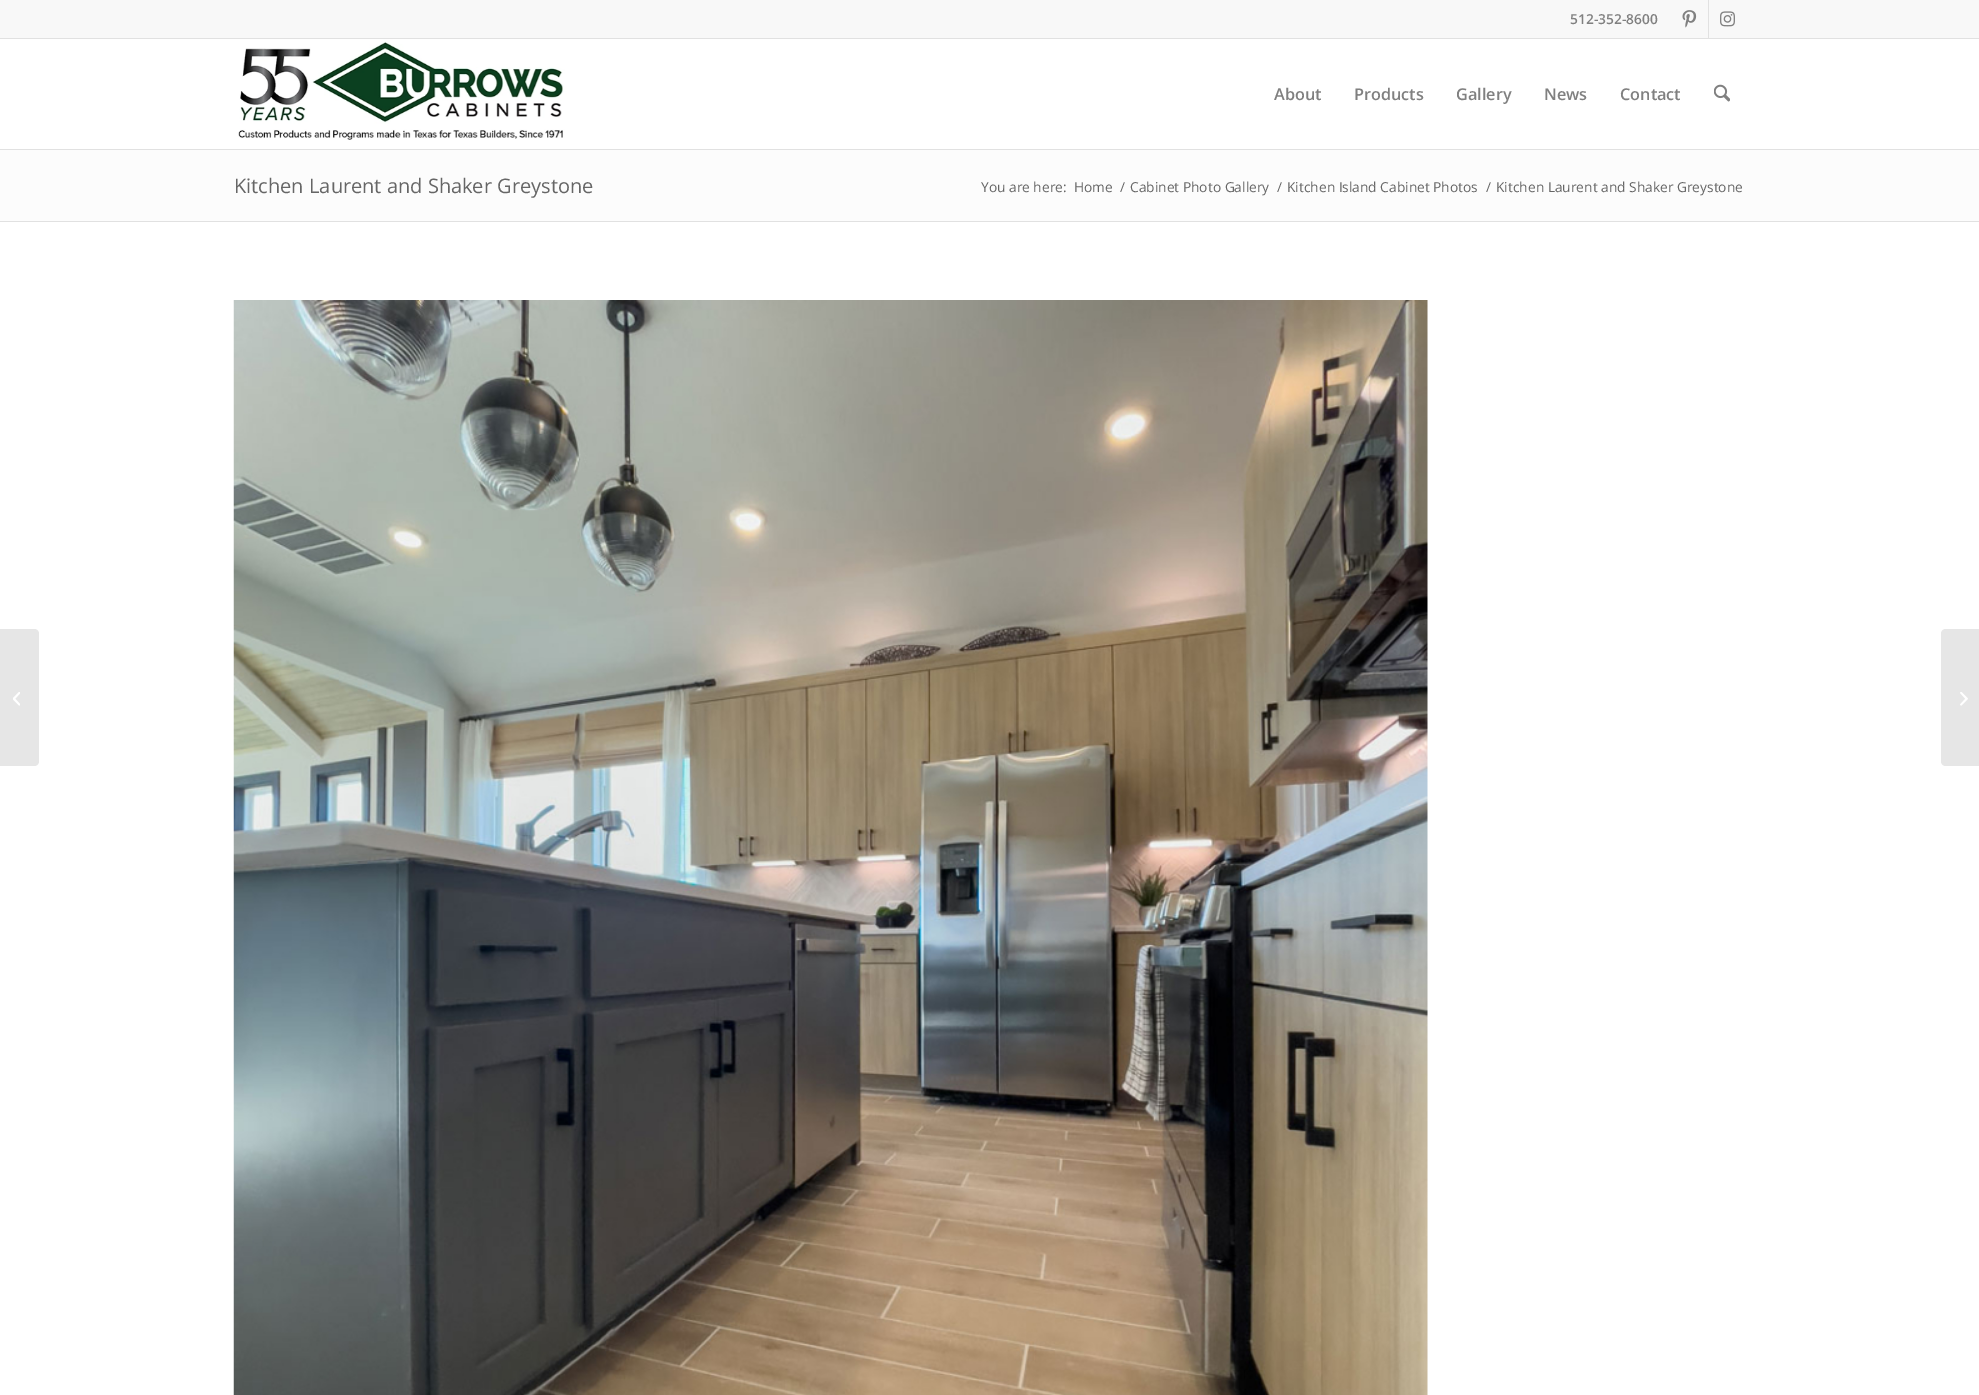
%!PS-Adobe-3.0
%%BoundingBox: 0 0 1979 1395
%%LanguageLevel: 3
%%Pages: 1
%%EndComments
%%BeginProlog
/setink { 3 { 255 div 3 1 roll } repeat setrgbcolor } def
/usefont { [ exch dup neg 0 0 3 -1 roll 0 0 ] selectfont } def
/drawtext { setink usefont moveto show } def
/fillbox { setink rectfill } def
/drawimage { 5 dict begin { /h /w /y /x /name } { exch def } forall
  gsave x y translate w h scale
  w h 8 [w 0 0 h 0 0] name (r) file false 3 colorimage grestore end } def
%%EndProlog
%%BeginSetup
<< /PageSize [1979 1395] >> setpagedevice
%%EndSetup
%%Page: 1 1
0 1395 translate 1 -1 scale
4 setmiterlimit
0 0 1979 1395 255 255 255 fillbox
0 0 1979 38 248 248 248 fillbox
0 38 1979 1 225 225 225 fillbox
(512-352-8600) 1570 24 /OpenSans-SemiBold 13.75 128 128 128 drawtext
1708 0 1 38 225 225 225 fillbox
(assets/img1.rgb) 1682 10 15 18 drawimage
(assets/img2.rgb) 1720 11 15 16 drawimage
0 149 1979 1 225 225 225 fillbox
(assets/img3.rgb) 234 39 333 101 drawimage
(About) 1274 100 /OpenSans-SemiBold 16.25 128 128 128 drawtext
(Products) 1354 100 /OpenSans-SemiBold 16.25 128 128 128 drawtext
(Gallery) 1456 100 /OpenSans-SemiBold 16.25 128 128 128 drawtext
(News) 1544 100 /OpenSans-SemiBold 16.25 128 128 128 drawtext
(Contact) 1620 100 /OpenSans-SemiBold 16.25 128 128 128 drawtext
(assets/img4.rgb) 1714 84 16 18 drawimage
0 150 1979 71 252 252 252 fillbox
(Kitchen Laurent and Shaker Greystone) 234 193 /OpenSans-Regular 20 102 102 102 drawtext
(You are here:) 981 192 /OpenSans-Regular 13.75 102 102 102 drawtext
(Home) 1074 192 /OpenSans-Regular 13.75 102 102 102 drawtext
(/) 1120 192 /OpenSans-Regular 13.75 102 102 102 drawtext
(Cabinet Photo Gallery) 1130 192 /OpenSans-Regular 13.75 102 102 102 drawtext
(/) 1277 192 /OpenSans-Regular 13.75 102 102 102 drawtext
(Kitchen Island Cabinet Photos) 1287 192 /OpenSans-Regular 13.75 102 102 102 drawtext
(/) 1486 192 /OpenSans-Regular 13.75 102 102 102 drawtext
(Kitchen Laurent and Shaker Greystone) 1496 192 /OpenSans-Regular 13.75 102 102 102 drawtext
0 221 1979 1 225 225 225 fillbox
(assets/img5.rgb) 233 300 1195 1095 drawimage
230 230 230 setink
0 629 moveto 34 629 lineto 37 629 39 631 39 634 curveto 39 761 lineto 39 764 37 766 34 766 curveto 0 766 lineto closepath fill
(assets/img6.rgb) 13 692 7 14 drawimage
1946 629 moveto 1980 629 lineto 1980 766 lineto 1946 766 lineto 1943 766 1941 764 1941 761 curveto 1941 634 lineto 1941 631 1943 629 1946 629 curveto closepath fill
(assets/img7.rgb) 1960 692 8 14 drawimage
showpage
%%EOF
